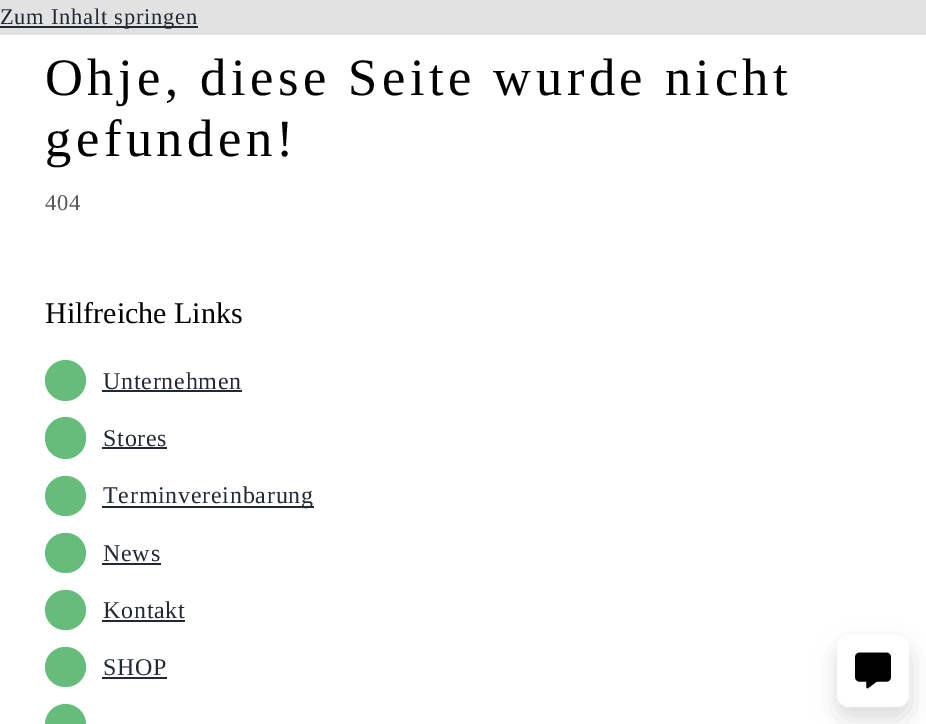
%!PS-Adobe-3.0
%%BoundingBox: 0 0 926 724
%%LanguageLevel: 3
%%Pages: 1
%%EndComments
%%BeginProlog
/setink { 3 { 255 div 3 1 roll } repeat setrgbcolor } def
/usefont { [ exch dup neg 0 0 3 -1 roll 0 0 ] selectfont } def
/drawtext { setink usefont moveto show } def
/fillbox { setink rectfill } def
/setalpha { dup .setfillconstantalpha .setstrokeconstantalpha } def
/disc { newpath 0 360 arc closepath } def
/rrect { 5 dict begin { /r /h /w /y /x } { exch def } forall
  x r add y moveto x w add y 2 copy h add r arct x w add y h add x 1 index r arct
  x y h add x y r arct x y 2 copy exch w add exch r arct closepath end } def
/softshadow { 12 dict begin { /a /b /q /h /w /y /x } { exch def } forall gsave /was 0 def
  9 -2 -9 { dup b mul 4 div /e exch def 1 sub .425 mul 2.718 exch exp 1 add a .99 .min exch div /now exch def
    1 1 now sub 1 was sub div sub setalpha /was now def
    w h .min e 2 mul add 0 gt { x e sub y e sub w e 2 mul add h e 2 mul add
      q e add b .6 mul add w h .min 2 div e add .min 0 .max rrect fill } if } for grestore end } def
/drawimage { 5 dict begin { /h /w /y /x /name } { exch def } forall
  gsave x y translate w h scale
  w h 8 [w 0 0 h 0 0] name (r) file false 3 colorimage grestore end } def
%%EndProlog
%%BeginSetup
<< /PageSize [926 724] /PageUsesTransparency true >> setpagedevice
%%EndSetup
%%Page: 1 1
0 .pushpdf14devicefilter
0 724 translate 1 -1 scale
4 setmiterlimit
0 0 926 724 226 226 226 fillbox
0 26 198 2 33 41 52 fillbox
/LiberationSerif-Regular 22.5 usefont
0 24 moveto 0.75 0 (Zum Inhalt springen) ashow
0 35 926 689 255 255 255 fillbox
/LiberationSerif-Regular 52.5 usefont
0 0 0 setink
45 95 moveto 4.5 0 (Ohje, diese Seite wurde nicht) ashow
45 156 moveto 4.5 0 (gefunden!) ashow
/LiberationSerif-Regular 22.5 usefont
87 87 87 setink
45 210 moveto 0.75 0 (404) ashow
(Hilfreiche Links) 45 323 /LiberationSerif-Regular 30 0 0 0 drawtext
101 188 123 setink
65.5 380.5 20.5 disc fill
/LiberationSerif-Regular 24 usefont
33 41 52 setink
103 389 moveto 0.75 0 (Unternehmen) ashow
102 390 140 2 33 41 52 fillbox
101 188 123 setink
45 417 41 42 20.5 rrect fill
33 41 52 setink
103 446 moveto 0.75 0 (Stores) ashow
102 447 65 2 33 41 52 fillbox
101 188 123 setink
45 476 41 40 20 rrect fill
102 506 212 2 33 41 52 fillbox
103 503 moveto 0.75 0 (Terminvereinbarung) ashow
101 188 123 setink
45 533 41 40 20 rrect fill
33 41 52 setink
103 561 moveto 0.75 0 (News) ashow
102 563 59 2 33 41 52 fillbox
101 188 123 setink
45 590 41 40 20 rrect fill
33 41 52 setink
103 618 moveto 0.75 0 (Kontakt) ashow
102 620 83 2 33 41 52 fillbox
101 188 123 setink
45 647 41 40 20 rrect fill
33 41 52 setink
103 675 moveto 0.75 0 (SHOP) ashow
102 677 65 2 33 41 52 fillbox
101 188 123 setink
65.5 724.5 20.5 disc fill
0 0 0 setink
836 645 75 75 14 11 0.14 softshadow
255 255 255 setink
837 635 72 72 12 rrect fill
(assets/img1.rgb) 855 652 36 37 drawimage
.poppdf14devicefilter showpage
%%EOF
